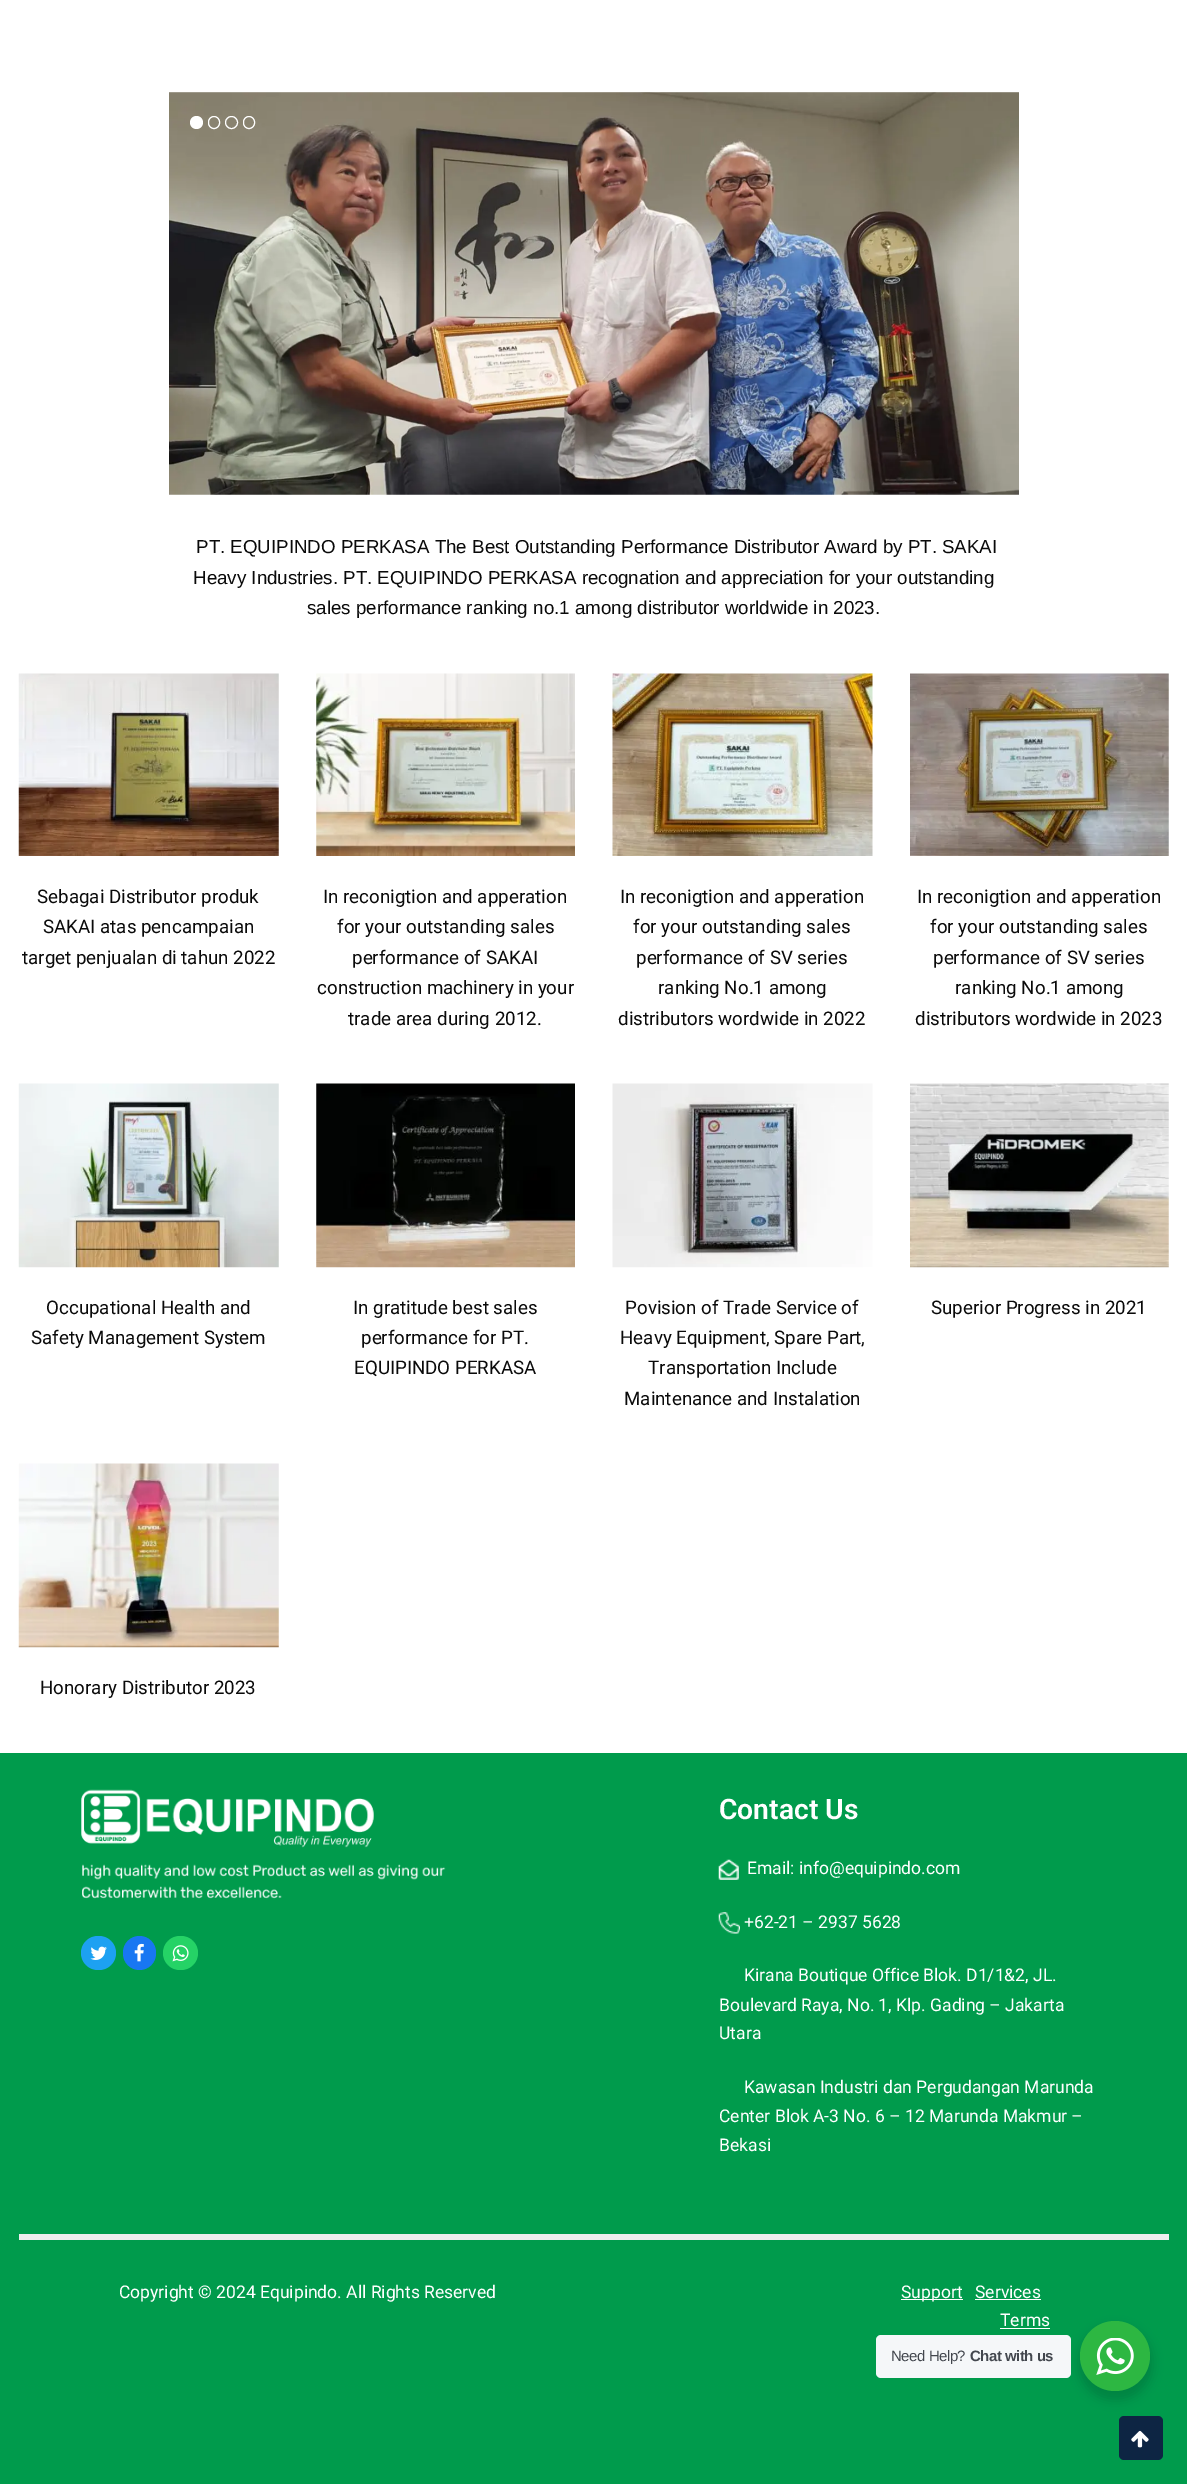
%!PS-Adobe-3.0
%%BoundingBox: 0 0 1187 2484
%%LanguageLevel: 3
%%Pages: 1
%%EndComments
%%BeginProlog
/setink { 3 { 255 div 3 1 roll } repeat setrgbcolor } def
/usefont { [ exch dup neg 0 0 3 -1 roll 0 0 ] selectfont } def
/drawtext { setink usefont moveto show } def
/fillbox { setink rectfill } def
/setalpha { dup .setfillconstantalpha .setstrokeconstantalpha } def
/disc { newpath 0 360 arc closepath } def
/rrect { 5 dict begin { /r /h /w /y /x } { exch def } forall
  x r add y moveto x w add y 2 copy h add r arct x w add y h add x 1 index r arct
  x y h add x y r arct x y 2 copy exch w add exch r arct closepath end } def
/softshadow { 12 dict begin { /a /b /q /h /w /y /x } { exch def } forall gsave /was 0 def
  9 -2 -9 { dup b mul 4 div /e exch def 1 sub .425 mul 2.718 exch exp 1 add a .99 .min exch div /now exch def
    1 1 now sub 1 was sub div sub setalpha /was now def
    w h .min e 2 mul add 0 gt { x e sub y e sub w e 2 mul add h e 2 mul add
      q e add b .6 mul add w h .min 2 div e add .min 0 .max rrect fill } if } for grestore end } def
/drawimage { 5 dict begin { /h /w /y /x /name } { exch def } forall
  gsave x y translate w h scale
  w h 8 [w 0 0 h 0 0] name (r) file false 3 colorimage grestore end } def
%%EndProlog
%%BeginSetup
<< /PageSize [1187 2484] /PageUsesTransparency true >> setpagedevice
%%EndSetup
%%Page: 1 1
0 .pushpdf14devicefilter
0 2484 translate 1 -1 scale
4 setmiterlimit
0 0 1187 2484 255 255 255 fillbox
(assets/img1.rgb) 169 92 850 403 drawimage
196.5 122.5 6.5 disc fill
208.5 116.5 11 12 5.5 rrect stroke
231.5 122.5 6 disc stroke
243.5 116.5 11 12 5.5 rrect stroke
(PT. EQUIPINDO PERKASA The Best Outstanding Performance Distributor Award by PT. SAKAI) 196 553 /LiberationSans-Regular 18.75 10 10 10 drawtext
(Heavy Industries. PT. EQUIPINDO PERKASA recognation and appreciation for your outstanding) 193 584 /LiberationSans-Regular 18.75 10 10 10 drawtext
(sales performance ranking no.1 among distributor worldwide in 2023.) 307 614 /LiberationSans-Regular 18.75 10 10 10 drawtext
(assets/img2.rgb) 18 673 261 183 drawimage
(Sebagai Distributor produk) 37 903 /Roboto-Regular 18.75 10 10 10 drawtext
(SAKAI atas pencampaian) 43 933 /Roboto-Regular 18.75 10 10 10 drawtext
(target penjualan di tahun 2022) 22 964 /Roboto-Regular 18.75 10 10 10 drawtext
(assets/img3.rgb) 316 673 259 183 drawimage
(In reconigtion and apperation) 323 903 /Roboto-Regular 18.75 10 10 10 drawtext
(for your outstanding sales) 337 933 /Roboto-Regular 18.75 10 10 10 drawtext
(performance of SAKAI) 352 964 /Roboto-Regular 18.75 10 10 10 drawtext
(construction machinery in your) 317 994 /Roboto-Regular 18.75 10 10 10 drawtext
(trade area during 2012.) 348 1025 /Roboto-Regular 18.75 10 10 10 drawtext
(assets/img4.rgb) 612 673 261 183 drawimage
(In reconigtion and apperation) 620 903 /Roboto-Regular 18.75 10 10 10 drawtext
(for your outstanding sales) 633 933 /Roboto-Regular 18.75 10 10 10 drawtext
(performance of SV series) 636 964 /Roboto-Regular 18.75 10 10 10 drawtext
(ranking No.1 among) 658 994 /Roboto-Regular 18.75 10 10 10 drawtext
(distributors wordwide in 2022) 618 1025 /Roboto-Regular 18.75 10 10 10 drawtext
(assets/img5.rgb) 910 673 259 183 drawimage
(In reconigtion and apperation) 917 903 /Roboto-Regular 18.75 10 10 10 drawtext
(for your outstanding sales) 930 933 /Roboto-Regular 18.75 10 10 10 drawtext
(performance of SV series) 933 964 /Roboto-Regular 18.75 10 10 10 drawtext
(ranking No.1 among) 955 994 /Roboto-Regular 18.75 10 10 10 drawtext
(distributors wordwide in 2023) 915 1025 /Roboto-Regular 18.75 10 10 10 drawtext
(assets/img6.rgb) 18 1083 261 185 drawimage
(Occupational Health and) 46 1314 /Roboto-Regular 18.75 10 10 10 drawtext
(Safety Management System) 31 1344 /Roboto-Regular 18.75 10 10 10 drawtext
(assets/img7.rgb) 316 1083 259 185 drawimage
(In gratitude best sales) 353 1314 /Roboto-Regular 18.75 10 10 10 drawtext
(performance for PT.) 361 1344 /Roboto-Regular 18.75 10 10 10 drawtext
(EQUIPINDO PERKASA) 354 1374 /Roboto-Regular 18.75 10 10 10 drawtext
(assets/img8.rgb) 612 1083 261 185 drawimage
(Povision of Trade Service of) 625 1314 /Roboto-Regular 18.75 10 10 10 drawtext
(Heavy Equipment, Spare Part,) 620 1344 /Roboto-Regular 18.75 10 10 10 drawtext
(Transportation Include) 648 1374 /Roboto-Regular 18.75 10 10 10 drawtext
(Maintenance and Instalation) 624 1405 /Roboto-Regular 18.75 10 10 10 drawtext
(assets/img9.rgb) 910 1083 259 185 drawimage
(Superior Progress in 2021) 931 1314 /Roboto-Regular 18.75 10 10 10 drawtext
(assets/img10.rgb) 18 1463 261 185 drawimage
(Honorary Distributor 2023) 40 1694 /Roboto-Regular 18.75 10 10 10 drawtext
0 1753 1187 682 0 155 76 fillbox
(assets/img11.rgb) 81 1789 365 110 drawimage
29 161 242 setink
81 1936 35 34 17 rrect fill
(assets/img12.rgb) 90 1946 17 14 drawimage
24 119 242 setink
123 1936 33 34 16.5 rrect fill
(assets/img13.rgb) 134 1943 10 19 drawimage
37 211 102 setink
163 1936 35 34 17 rrect fill
(assets/img14.rgb) 172 1945 17 17 drawimage
(Contact Us) 719 1819 /Roboto-SemiBold 28.25 255 255 255 drawtext
(assets/img15.rgb) 718 1859 21 21 drawimage
(Email: info@equipindo.com) 747 1874 /Roboto-Regular 17.5 255 255 255 drawtext
(assets/img16.rgb) 718 1912 22 22 drawimage
(+62-21 – 2937 5628) 744 1928 /Roboto-Regular 17.5 255 255 255 drawtext
(Kirana Boutique Office Blok. D1/1&2, JL.) 744 1981 /Roboto-Regular 17.5 255 255 255 drawtext
(Boulevard Raya, No. 1, Klp. Gading – Jakarta) 719 2011 /Roboto-Regular 17.5 255 255 255 drawtext
(Utara) 719 2039 /Roboto-Regular 17.5 255 255 255 drawtext
(Kawasan Industri dan Pergudangan Marunda) 744 2093 /Roboto-Regular 17.5 255 255 255 drawtext
(Center Blok A-3 No. 6 – 12 Marunda Makmur –) 719 2122 /Roboto-Regular 17.5 255 255 255 drawtext
(Bekasi) 719 2151 /Roboto-Regular 17.5 255 255 255 drawtext
19 2234 1150 6 238 238 238 fillbox
(Copyright © 2024 Equipindo. All Rights Reserved) 119 2298 /Roboto-Regular 17.5 255 255 255 drawtext
901 2299 62 1 255 255 255 fillbox
(Support) 901 2298 /Roboto-Regular 17.5 255 255 255 drawtext
(Services) 975 2298 /Roboto-Regular 17.5 255 255 255 drawtext
975 2299 66 1 255 255 255 fillbox
(Terms) 1000 2326 /Roboto-Regular 17.5 255 255 255 drawtext
1000 2328 50 1 255 255 255 fillbox
0 2435 1187 49 0 155 76 fillbox
13 37 67 setink
1119 2416 44 44 5 rrect fill
0 0 0 setink
1078 2326 75 75 37.5 5 0.14 softshadow
245 247 249 setink
876 2335 195 43 5 rrect fill
/LiberationSans-Regular 15 usefont
67 71 78 setink
891 2361 moveto -0.5 0 (Need Help?) ashow
/LiberationSans-Bold 15 usefont
970 2361 moveto -0.5 0 (Chat with us) ashow
45 183 66 setink
1115 2356 35 disc fill
(assets/img17.rgb) 1096 2338 38 37 drawimage
(assets/img18.rgb) 1131 2430 18 18 drawimage
.poppdf14devicefilter showpage
%%EOF
